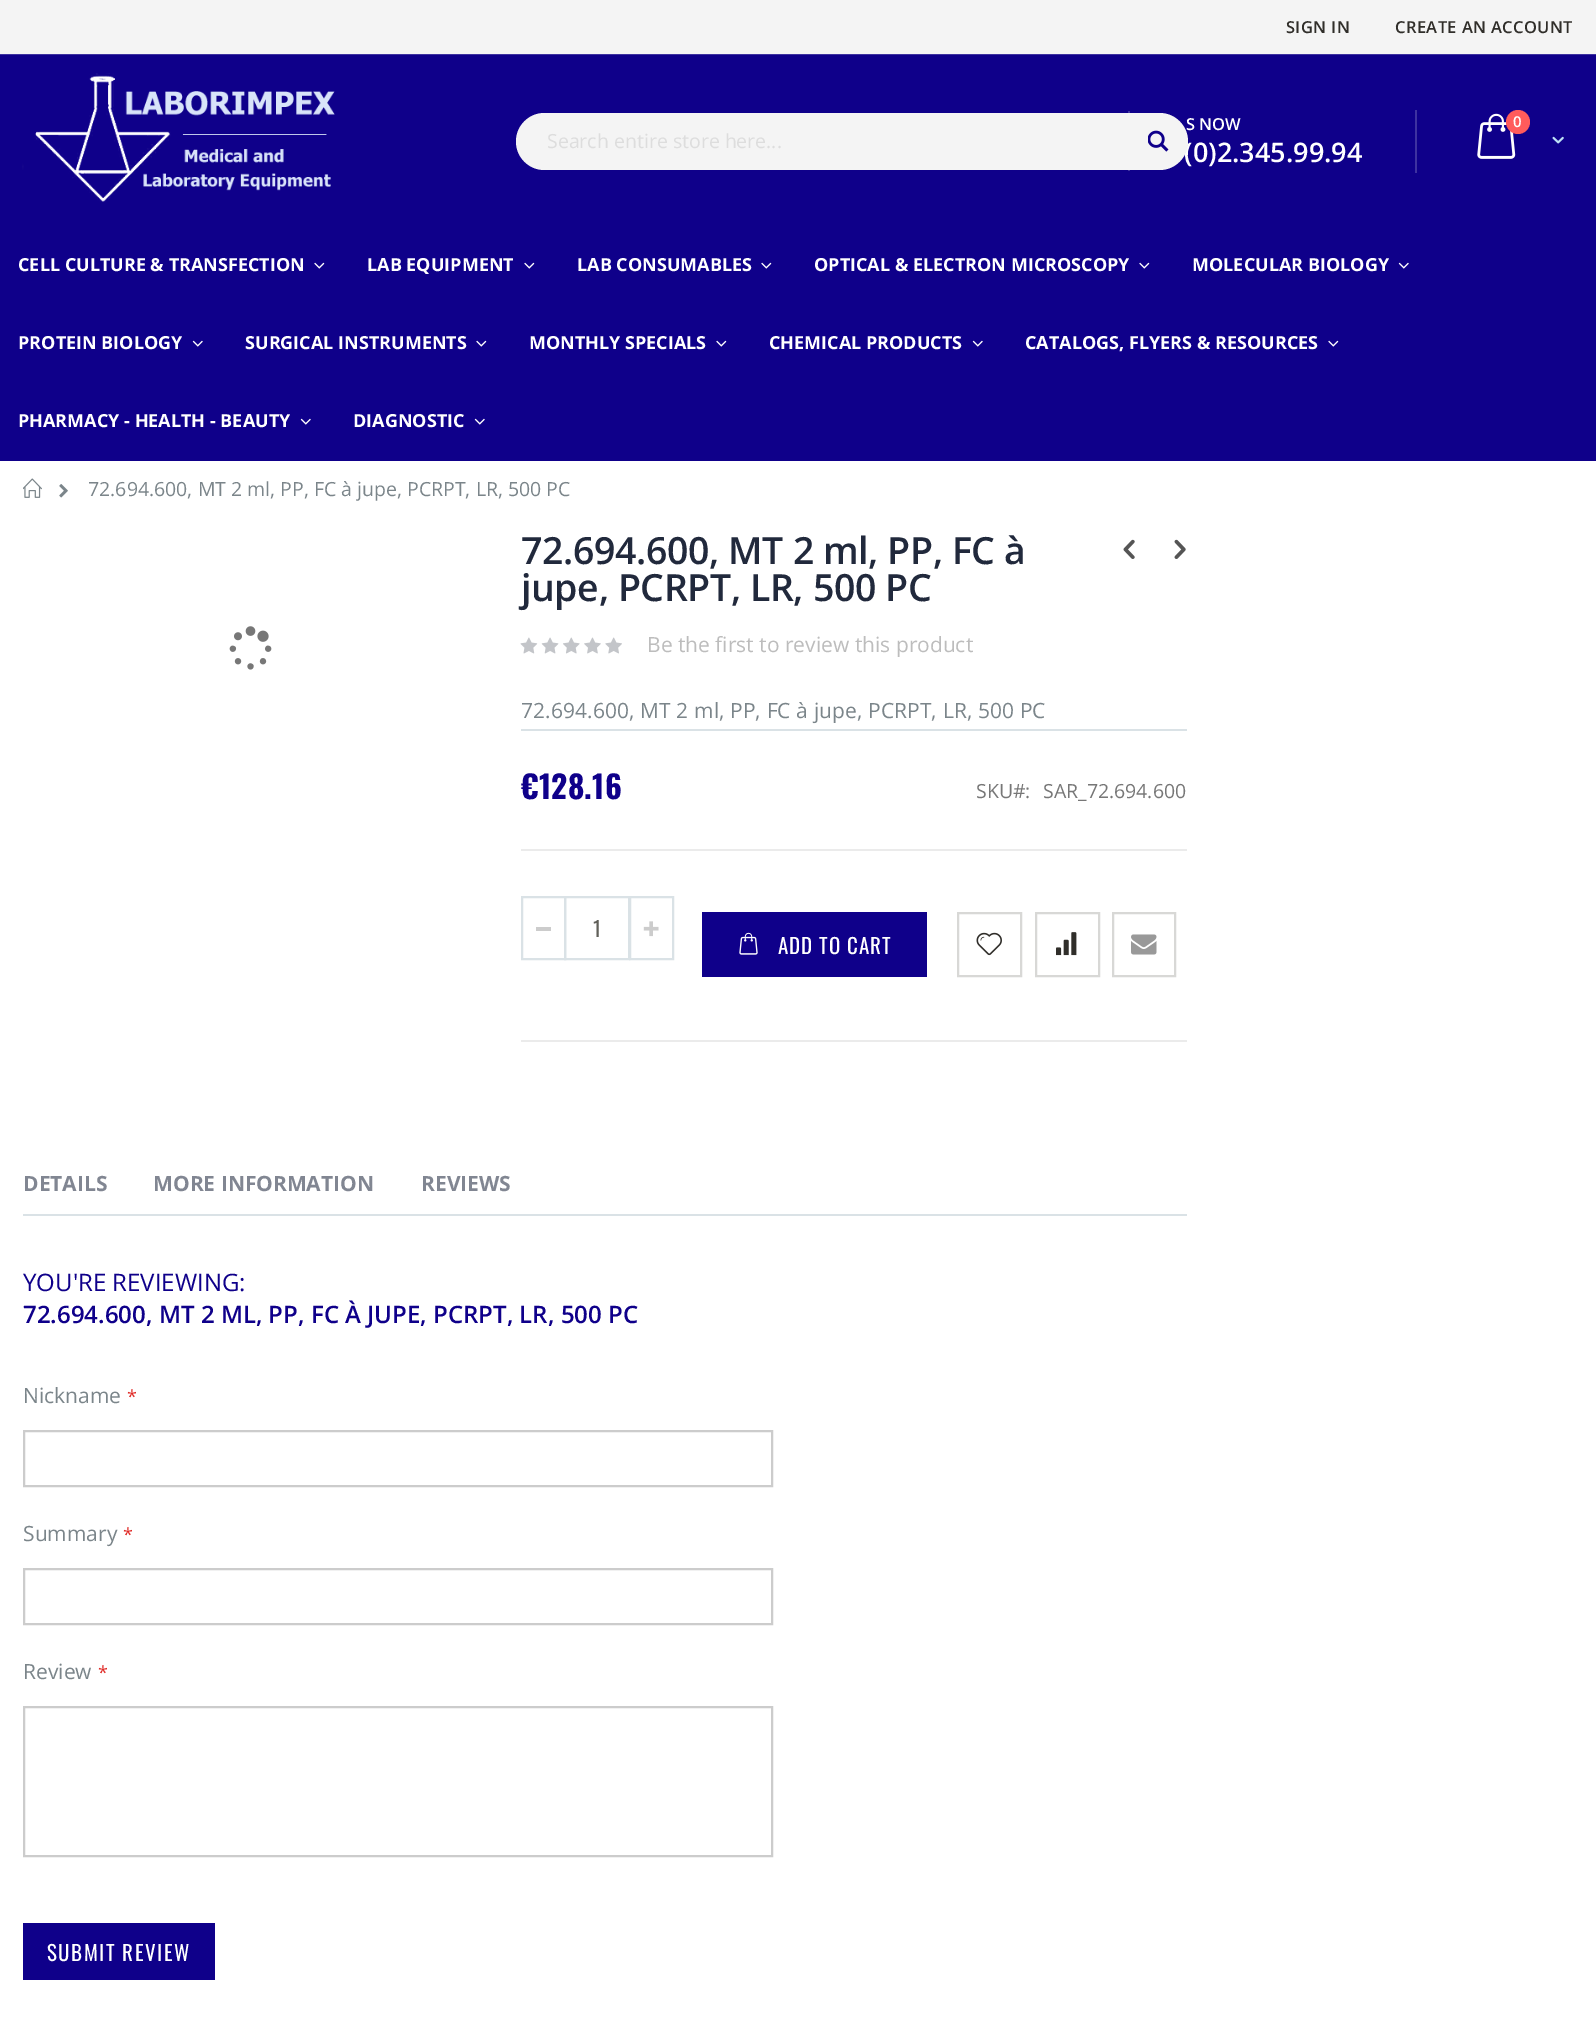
%!PS-Adobe-3.0
%%BoundingBox: 0 0 1596 2023
%%LanguageLevel: 3
%%Pages: 1
%%EndComments
%%BeginProlog
/setink { 3 { 255 div 3 1 roll } repeat setrgbcolor } def
/usefont { [ exch dup neg 0 0 3 -1 roll 0 0 ] selectfont } def
/drawtext { setink usefont moveto show } def
/fillbox { setink rectfill } def
/disc { newpath 0 360 arc closepath } def
/rrect { 5 dict begin { /r /h /w /y /x } { exch def } forall
  x r add y moveto x w add y 2 copy h add r arct x w add y h add x 1 index r arct
  x y h add x y r arct x y 2 copy exch w add exch r arct closepath end } def
/drawimage { 5 dict begin { /h /w /y /x /name } { exch def } forall
  gsave x y translate w h scale
  w h 8 [w 0 0 h 0 0] name (r) file false 3 colorimage grestore end } def
%%EndProlog
%%BeginSetup
<< /PageSize [1596 2023] >> setpagedevice
%%EndSetup
%%Page: 1 1
0 2023 translate 1 -1 scale
4 setmiterlimit
0 0 1596 2023 255 255 255 fillbox
0 55 1596 406 15 0 138 fillbox
1128 111 2 60 63 51 161 fillbox
0 54 1596 1 62 50 160 fillbox
0 0 1596 53 244 244 244 fillbox
0 53 1596 1 245 245 245 fillbox
/OpenSans-SemiBold 16.5 usefont
48 46 42 setink
1286 33 moveto 0.4 0 (SIGN IN) ashow
1395 33 moveto 0.4 0 (CREATE AN ACCOUNT) ashow
(assets/img1.rgb) 22 73 313 129 drawimage
(S NOW) 1186 130 /OpenSans-SemiBold 16.5 255 255 255 drawtext
(\(0\)2.345.99.94) 1184 162 /OpenSans-SemiBold 27 255 255 255 drawtext
244 244 244 setink
516 113 672 57 28.5 rrect fill
(Search entire store here...) 547 148 /OpenSans-Regular 19.5 221 221 221 drawtext
(assets/img2.rgb) 1148 130 21 22 drawimage
1415 110 2 63 62 50 160 fillbox
(assets/img3.rgb) 1477 113 39 46 drawimage
255 91 91 setink
1518 122 12 disc fill
(0) 1513 127 /OpenSans-SemiBold 15 255 255 255 drawtext
(assets/img4.rgb) 1552 136 12 8 drawimage
(CELL CULTURE & TRANSFECTION) 18 271 /OpenSans-Bold 18 255 255 255 drawtext
(assets/img5.rgb) 314 262 11 7 drawimage
(LAB EQUIPMENT) 367 271 /OpenSans-Bold 18 255 255 255 drawtext
(assets/img5.rgb) 524 262 11 7 drawimage
(LAB CONSUMABLES) 577 271 /OpenSans-Bold 18 255 255 255 drawtext
(assets/img5.rgb) 761 262 11 7 drawimage
(OPTICAL & ELECTRON MICROSCOPY) 814 271 /OpenSans-Bold 18 255 255 255 drawtext
(assets/img5.rgb) 1139 262 11 7 drawimage
(MOLECULAR BIOLOGY) 1192 271 /OpenSans-Bold 18 255 255 255 drawtext
(assets/img6.rgb) 1398 262 11 7 drawimage
(PROTEIN BIOLOGY) 18 349 /OpenSans-Bold 18 255 255 255 drawtext
(assets/img6.rgb) 192 340 11 7 drawimage
(SURGICAL INSTRUMENTS) 245 349 /OpenSans-Bold 18 255 255 255 drawtext
(assets/img5.rgb) 476 340 11 7 drawimage
(MONTHLY SPECIALS) 529 349 /OpenSans-Bold 18 255 255 255 drawtext
(assets/img5.rgb) 716 340 11 7 drawimage
(CHEMICAL PRODUCTS) 769 349 /OpenSans-Bold 18 255 255 255 drawtext
(assets/img6.rgb) 972 340 11 7 drawimage
(CATALOGS, FLYERS & RESOURCES) 1025 349 /OpenSans-Bold 18 255 255 255 drawtext
(assets/img5.rgb) 1328 340 11 7 drawimage
(PHARMACY - HEALTH - BEAUTY) 18 427 /OpenSans-Bold 18 255 255 255 drawtext
(assets/img6.rgb) 300 418 11 7 drawimage
(DIAGNOSTIC) 353 427 /OpenSans-Bold 18 255 255 255 drawtext
(assets/img6.rgb) 474 418 11 7 drawimage
(assets/img7.rgb) 23 478 19 20 drawimage
(assets/img8.rgb) 59 484 9 14 drawimage
(72.694.600, MT 2 ml, PP, FC à jupe, PCRPT, LR, 500 PC) 88 496 /OpenSans-Regular 19.5 123 133 138 drawtext
(assets/img9.rgb) 229 626 43 44 drawimage
/OpenSans-SemiBold 37.5 usefont
33 41 60 setink
521 564 moveto -0.4 0 (72.694.600, MT 2 ml, PP, FC à) ashow
521 601 moveto -0.4 0 (jupe, PCRPT, LR, 500 PC) ashow
(assets/img10.rgb) 1123 539 12 20 drawimage
(assets/img11.rgb) 1174 539 12 20 drawimage
(assets/img12.rgb) 520 637 102 17 drawimage
(Be the first to review this product) 647 652 /OpenSans-Regular 21 189 189 189 drawtext
521 729 666 2 218 226 230 fillbox
123 133 138 setink
521 718 moveto 0.1 0 (72.694.600, MT 2 ml, PP, FC à jupe, PCRPT, LR, 500 PC) ashow
521 849 666 2 235 235 235 fillbox
/Oswald-Bold 31.5 usefont
15 0 138 setink
521 799 moveto 0.25 0 (€128.16) ashow
(SKU#:) 976 798 /OpenSans-Regular 19.5 119 119 119 drawtext
(SAR_72.694.600) 1043 798 /OpenSans-Regular 19.5 119 119 119 drawtext
218 226 230 setink
2 setlinewidth
565 897 64 62 rectstroke
522 897 43 62 rectstroke
536 927 15 4 204 204 204 fillbox
218 226 230 setink
630 897 43 62 rectstroke
(assets/img13.rgb) 643 921 16 16 drawimage
(1) 593 937 /Oswald-Regular 21 97 96 90 drawtext
216 216 214 setink
958 913 63 63 rectstroke
(assets/img14.rgb) 976 932 26 24 drawimage
1036 913 63 63 rectstroke
(assets/img15.rgb) 1056 932 21 24 drawimage
1113 913 62 63 rectstroke
(assets/img16.rgb) 1131 934 26 21 drawimage
702 912 225 65 15 0 138 fillbox
(assets/img17.rgb) 739 932 19 23 drawimage
255 255 255 setink
778 954 moveto 1 0 (ADD TO CART) ashow
521 1040 666 2 235 235 235 fillbox
(DETAILS) 23 1191 /OpenSans-Bold 21 129 134 146 drawtext
(MORE INFORMATION) 153 1191 /OpenSans-Bold 21 129 134 146 drawtext
(REVIEWS) 421 1191 /OpenSans-Bold 21 129 134 146 drawtext
23 1214 1164 2 218 226 230 fillbox
(YOU'RE REVIEWING:) 23 1291 /OpenSans-Regular 24 15 0 138 drawtext
(72.694.600, MT 2 ML, PP, FC À JUPE, PCRPT, LR, 500 PC) 23 1323 /OpenSans-SemiBold 24 15 0 138 drawtext
(Nickname) 23 1403 /OpenSans-Regular 21 123 133 138 drawtext
(*) 127 1403 /OpenSans-Regular 18 224 43 39 drawtext
204 204 204 setink
24 1431 748 55 rectstroke
(Summary) 23 1541 /OpenSans-Regular 21 123 133 138 drawtext
(*) 123 1541 /OpenSans-Regular 18 224 43 39 drawtext
204 204 204 setink
24 1569 748 55 rectstroke
(Review) 23 1679 /OpenSans-Regular 21 123 133 138 drawtext
(*) 98 1679 /OpenSans-Regular 18 224 43 39 drawtext
204 204 204 setink
24 1707 748 149 rectstroke
23 1923 192 57 15 0 138 fillbox
/Oswald-Regular 21 usefont
255 255 255 setink
47 1961 moveto 1.5 0 (SUBMIT REVIEW) ashow
showpage
%%EOF
